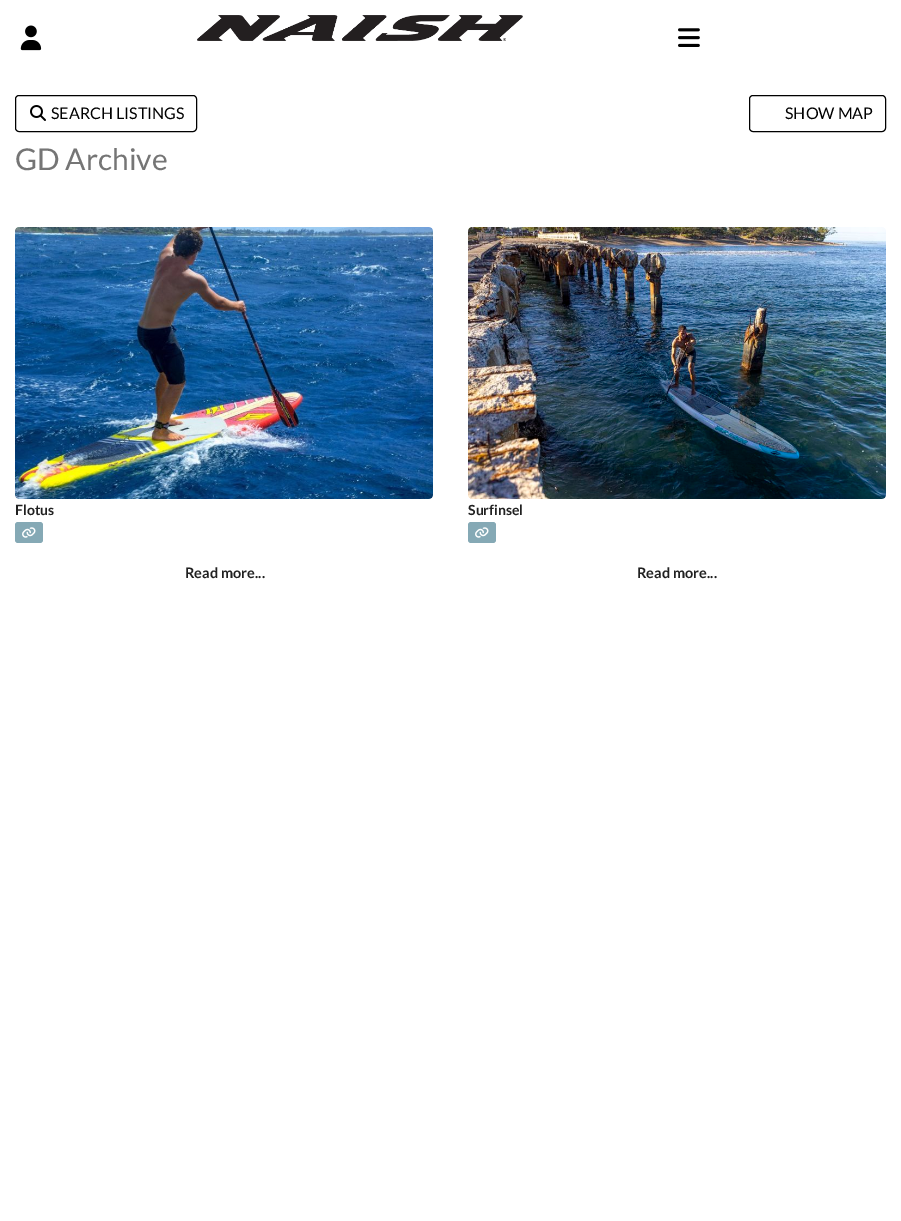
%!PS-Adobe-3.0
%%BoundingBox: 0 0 901 1221
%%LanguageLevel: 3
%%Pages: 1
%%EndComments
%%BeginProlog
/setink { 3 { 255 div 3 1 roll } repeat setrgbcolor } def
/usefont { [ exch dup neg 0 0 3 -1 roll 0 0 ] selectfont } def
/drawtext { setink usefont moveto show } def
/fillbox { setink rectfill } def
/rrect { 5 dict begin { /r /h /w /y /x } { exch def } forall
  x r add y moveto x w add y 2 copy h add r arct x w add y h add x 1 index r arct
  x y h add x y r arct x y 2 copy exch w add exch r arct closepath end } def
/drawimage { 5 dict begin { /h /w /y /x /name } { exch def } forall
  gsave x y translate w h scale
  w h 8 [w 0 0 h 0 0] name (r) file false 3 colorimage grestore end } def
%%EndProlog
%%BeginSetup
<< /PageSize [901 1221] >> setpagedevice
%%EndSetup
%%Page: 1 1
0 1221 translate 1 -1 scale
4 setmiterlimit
0 0 901 1221 255 255 255 fillbox
(assets/img1.rgb) 20 25 22 26 drawimage
(assets/img2.rgb) 197 15 326 26 drawimage
(assets/img3.rgb) 678 28 22 19 drawimage
0 0 0 setink
15.5 95.5 181 36 3.5 rrect stroke
(assets/img4.rgb) 30 105 16 16 drawimage
(SEARCH LISTINGS) 51 119 /Lato-Regular 16 0 0 0 drawtext
749.5 95.5 136 36 3.5 rrect stroke
(SHOW MAP) 785 119 /Lato-Regular 16 0 0 0 drawtext
(GD Archive) 15 170 /Lato-Regular 30 117 117 117 drawtext
(assets/img5.rgb) 15 227 418 272 drawimage
(Flotus) 15 515 /Lato-Bold 14 33 33 33 drawtext
133 169 181 setink
15 522 28 21 3 rrect fill
(assets/img6.rgb) 22 527 14 11 drawimage
(Read more...) 185 578 /Lato-Bold 14.5 33 33 33 drawtext
(assets/img7.rgb) 468 227 418 272 drawimage
(Surfinsel) 468 515 /Lato-Bold 14 33 33 33 drawtext
133 169 181 setink
468 522 28 21 3 rrect fill
(assets/img6.rgb) 475 527 14 11 drawimage
(Read more...) 637 578 /Lato-Bold 14.5 33 33 33 drawtext
showpage
%%EOF
